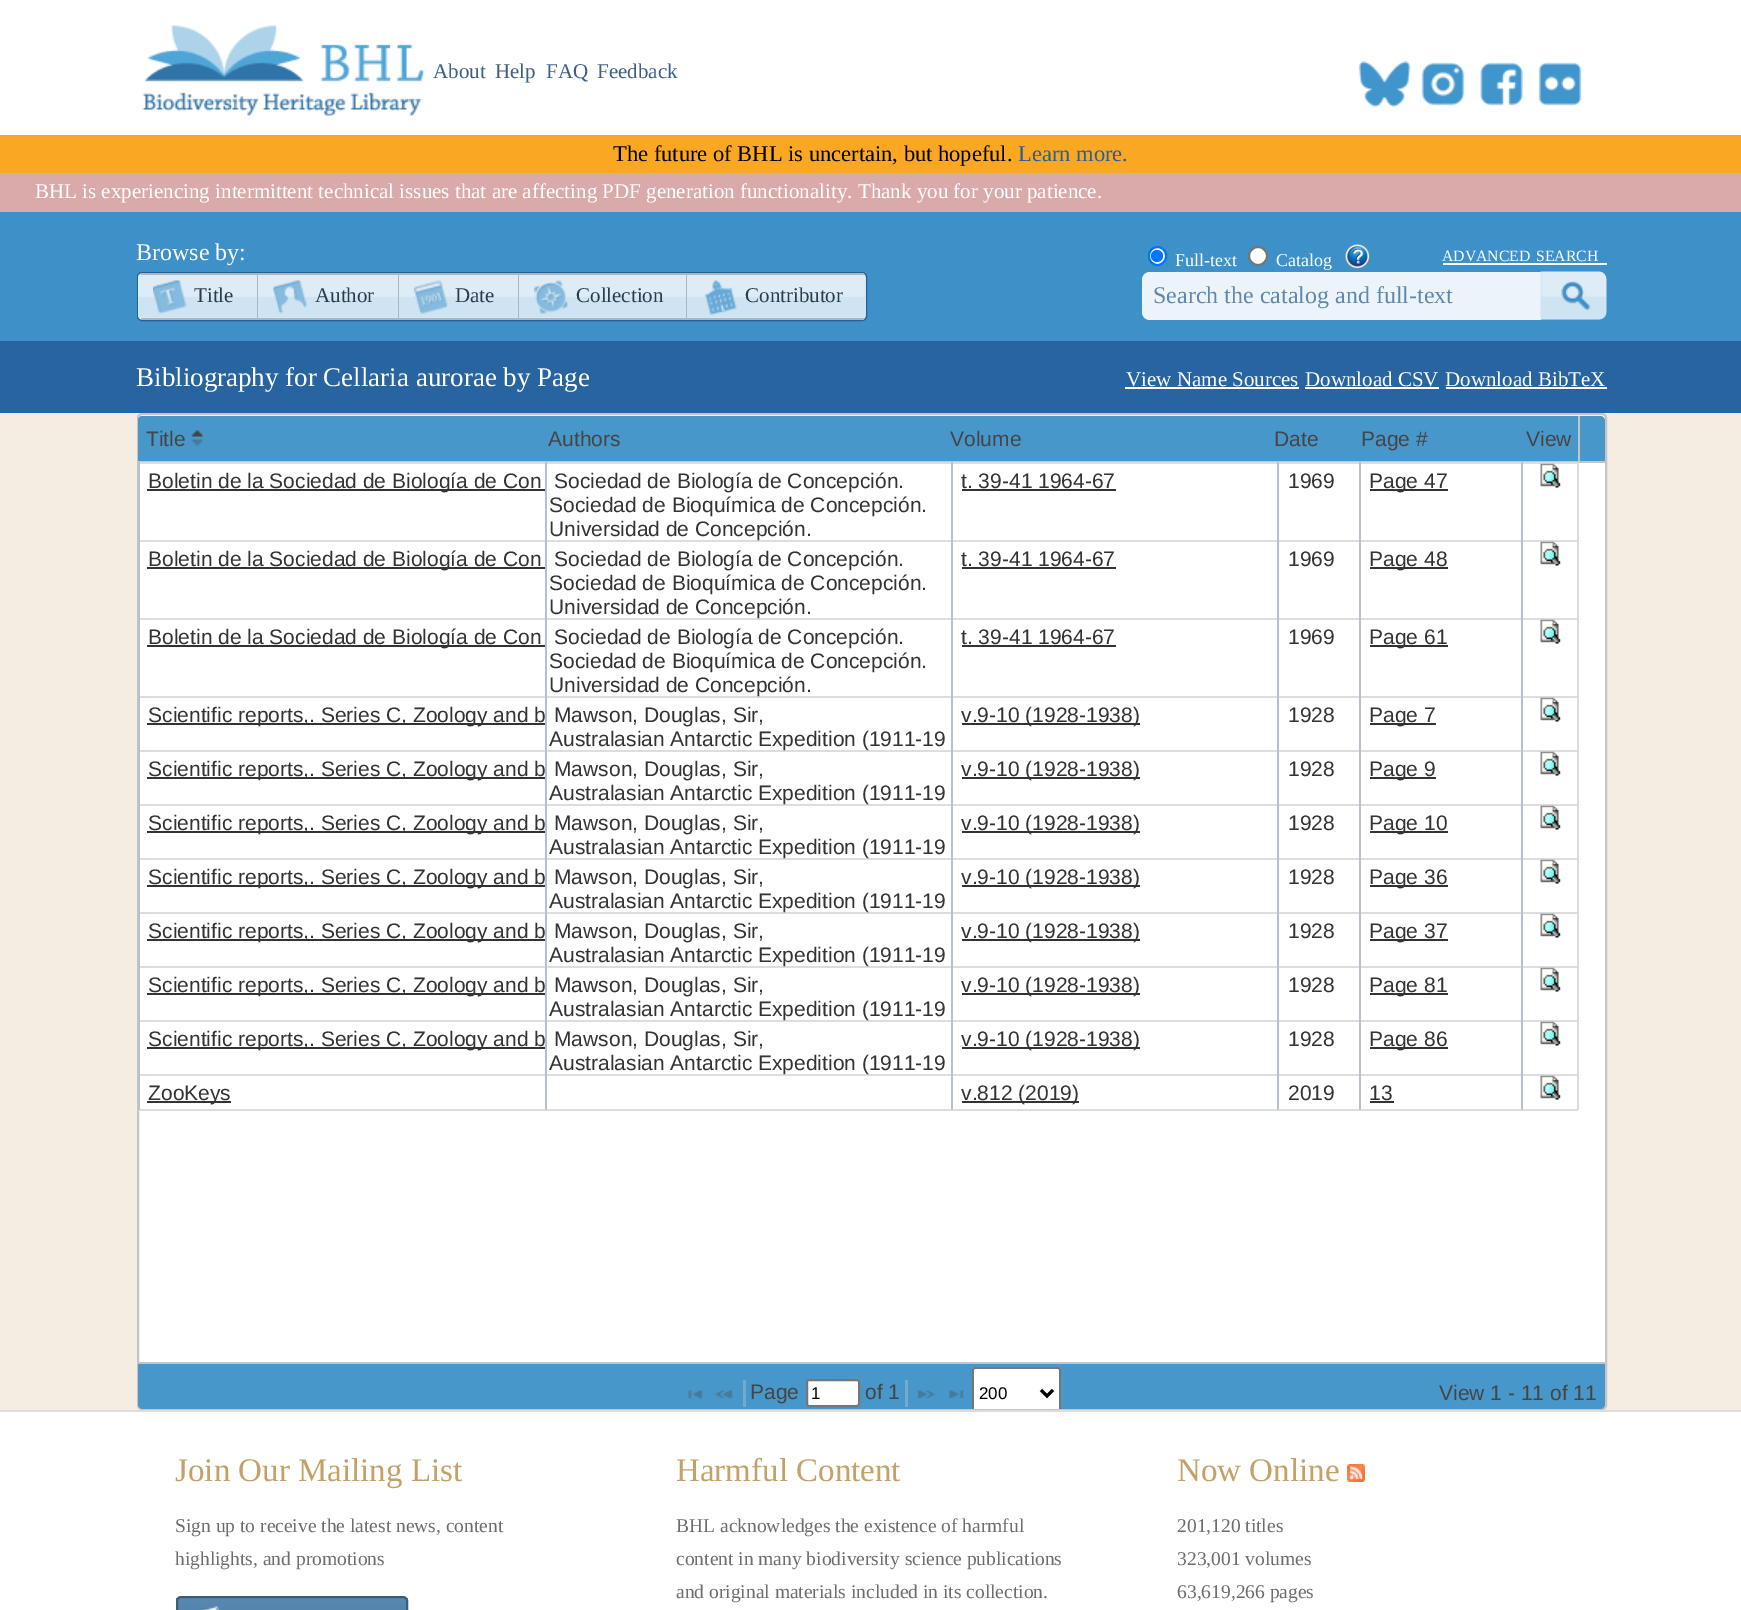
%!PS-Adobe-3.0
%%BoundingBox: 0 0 1741 1610
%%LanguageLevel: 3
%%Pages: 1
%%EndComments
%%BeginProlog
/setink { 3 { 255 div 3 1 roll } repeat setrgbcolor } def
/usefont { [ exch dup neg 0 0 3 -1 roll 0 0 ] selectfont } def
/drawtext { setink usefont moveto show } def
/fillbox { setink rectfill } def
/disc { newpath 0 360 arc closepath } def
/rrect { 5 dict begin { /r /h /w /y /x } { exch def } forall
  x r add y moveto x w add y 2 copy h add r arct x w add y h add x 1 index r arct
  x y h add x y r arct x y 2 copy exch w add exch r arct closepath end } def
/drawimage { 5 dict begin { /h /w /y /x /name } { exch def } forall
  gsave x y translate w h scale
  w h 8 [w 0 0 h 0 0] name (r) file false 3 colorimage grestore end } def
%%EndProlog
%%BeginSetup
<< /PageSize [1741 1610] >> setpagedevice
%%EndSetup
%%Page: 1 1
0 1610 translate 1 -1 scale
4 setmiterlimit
0 0 1741 1610 246 237 226 fillbox
0 0 1741 135 255 255 255 fillbox
(assets/img1.rgb) 142 25 283 91 drawimage
(About) 433 78 /LiberationSerif-Regular 21 62 95 130 drawtext
(Help) 495 78 /LiberationSerif-Regular 21 62 95 130 drawtext
(FAQ) 546 78 /LiberationSerif-Regular 21 62 95 130 drawtext
(Feedback) 597 78 /LiberationSerif-Regular 21 62 95 130 drawtext
(assets/img2.rgb) 1358 61 53 46 drawimage
(assets/img3.rgb) 1421 62 44 44 drawimage
(assets/img4.rgb) 1480 62 43 44 drawimage
(assets/img5.rgb) 1538 62 44 44 drawimage
0 135 1741 38 250 168 36 fillbox
(The future of BHL is uncertain, but hopeful.) 613 161 /LiberationSerif-Regular 22.5 0 0 0 drawtext
(Learn more.) 1018 161 /LiberationSerif-Regular 22.5 38 95 153 drawtext
0 173 1741 39 218 170 170 fillbox
(BHL is experiencing intermittent technical issues that are affecting PDF generation functionality. Thank you for your patience.) 35 198 /LiberationSerif-Regular 21 255 255 255 drawtext
0 212 1741 129 62 144 200 fillbox
(Browse by:) 136 260 /LiberationSerif-Regular 24 255 255 255 drawtext
38 96 153 setink
2 setlinewidth
138 273 728 47 4 rrect stroke
206 228 242 setink
143 273 moveto 258 273 lineto 258 320 lineto 143 320 lineto 140 320 138 318 138 315 curveto 138 278 lineto 138 275 140 273 143 273 curveto closepath fill
(assets/img6.rgb) 138 274 119 46 drawimage
141 273 546 2 168 183 193 fillbox
257 273 1 47 168 183 193 fillbox
141 318 117 2 168 183 193 fillbox
(assets/img7.rgb) 153 280 34 34 drawimage
(Title) 194 302 /LiberationSerif-Regular 21 43 60 77 drawtext
(assets/img8.rgb) 258 275 140 43 drawimage
398 273 1 47 168 183 193 fillbox
258 318 141 2 168 183 193 fillbox
(assets/img9.rgb) 273 280 35 34 drawimage
(Author) 315 302 /LiberationSerif-Regular 21 43 60 77 drawtext
(assets/img10.rgb) 399 275 119 43 drawimage
518 273 1 47 168 183 193 fillbox
399 318 120 2 168 183 193 fillbox
(assets/img11.rgb) 414 280 34 34 drawimage
(Date) 455 302 /LiberationSerif-Regular 21 43 60 77 drawtext
(assets/img12.rgb) 519 275 167 43 drawimage
686 273 1 47 168 183 193 fillbox
519 318 168 2 168 183 193 fillbox
(assets/img13.rgb) 534 280 35 34 drawimage
(Collection) 576 302 /LiberationSerif-Regular 21 43 60 77 drawtext
206 228 242 setink
687 273 moveto 861 273 lineto 864 273 866 275 866 278 curveto 866 315 lineto 866 318 864 320 861 320 curveto 687 320 lineto closepath fill
(assets/img14.rgb) 687 274 179 45 drawimage
687 273 177 2 168 183 193 fillbox
687 318 177 2 168 183 193 fillbox
(assets/img15.rgb) 704 280 33 35 drawimage
(Contributor) 745 302 /LiberationSerif-Regular 21 43 60 77 drawtext
255 255 255 setink
1149 247 17 18 8.5 rrect gsave fill grestore
0 117 255 setink
stroke
1157 256 6 disc fill
(Full-text) 1175 266 /LiberationSerif-Regular 18 255 255 255 drawtext
1258 256 9 disc gsave fill grestore
118 118 118 setink
stroke
(Catalog) 1276 266 /LiberationSerif-Regular 18 255 255 255 drawtext
(assets/img16.rgb) 1345 244 25 25 drawimage
(ADVANCED) 1442 261 /LiberationSerif-Regular 15.75 255 255 255 drawtext
1443 263 164 2 255 255 255 fillbox
(SEARCH) 1536 261 /LiberationSerif-Regular 15.75 255 255 255 drawtext
236 244 250 setink
1150 272 moveto 1541 272 lineto 1541 320 lineto 1150 320 lineto 1145.5 320 1142 316.5 1142 312 curveto 1142 280 lineto 1142 275.5 1145.5 272 1150 272 curveto closepath fill
(Search the catalog and full-text) 1153 303 /LiberationSerif-Regular 24 94 136 171 drawtext
(assets/img17.rgb) 1540 271 67 49 drawimage
0 341 1741 72 40 101 160 fillbox
(Bibliography for Cellaria aurorae by Page) 136 386 /LiberationSerif-Regular 27 255 255 255 drawtext
(View Name Sources) 1126 386 /LiberationSerif-Regular 21 255 255 255 drawtext
1125 387 174 2 255 255 255 fillbox
(Download CSV) 1305 386 /LiberationSerif-Regular 21 255 255 255 drawtext
1305 387 134 2 255 255 255 fillbox
(Download BibTeX) 1445 386 /LiberationSerif-Regular 21 255 255 255 drawtext
1446 387 161 2 255 255 255 fillbox
138 414 1468 995 4 rrect gsave fill grestore
197 197 197 setink
stroke
72 151 202 setink
143 416 moveto 1600 416 lineto 1603 416 1605 418 1605 421 curveto 1605 462 lineto 138 462 lineto 138 421 lineto 138 418 140 416 143 416 curveto closepath fill
138 461 1467 2 197 197 197 fillbox
72 151 202 setink
143 416 moveto 540 416 lineto 540 461 lineto 138 461 lineto 138 421 lineto 138 418 140 416 143 416 curveto closepath fill
(Title) 146 446 /LiberationSans-Regular 21 69 69 69 drawtext
(assets/img18.rgb) 191 430 12 7 drawimage
(assets/img19.rgb) 191 439 12 7 drawimage
(Authors) 548 446 /LiberationSans-Regular 21 69 69 69 drawtext
(Volume) 950 446 /LiberationSans-Regular 21 69 69 69 drawtext
(Date) 1274 446 /LiberationSans-Regular 21 69 69 69 drawtext
(Page #) 1361 446 /LiberationSans-Regular 21 69 69 69 drawtext
1578 416 2 45 197 197 197 fillbox
(View) 1526 446 /LiberationSans-Regular 21 69 69 69 drawtext
138 462 1440 2 221 221 221 fillbox
138 540 1440 2 221 221 221 fillbox
138 618 1440 2 221 221 221 fillbox
138 696 1440 2 221 221 221 fillbox
138 750 1440 2 221 221 221 fillbox
138 804 1440 2 221 221 221 fillbox
138 858 1440 2 221 221 221 fillbox
138 912 1440 2 221 221 221 fillbox
138 966 1440 2 221 221 221 fillbox
138 1020 1440 2 221 221 221 fillbox
138 1074 1440 2 221 221 221 fillbox
1577 1074 2 36 221 221 221 fillbox
1577 1020 2 56 221 221 221 fillbox
1577 966 2 56 221 221 221 fillbox
1577 912 2 56 221 221 221 fillbox
1577 858 2 56 221 221 221 fillbox
1577 804 2 56 221 221 221 fillbox
1577 750 2 56 221 221 221 fillbox
1577 696 2 56 221 221 221 fillbox
1577 618 2 80 221 221 221 fillbox
1577 540 2 80 221 221 221 fillbox
1577 462 2 80 221 221 221 fillbox
147 489 398 2 51 51 51 fillbox
(Boletin de la Sociedad de Biología de Con) 148 488 /LiberationSans-Regular 21 51 51 51 drawtext
(Sociedad de Biología de Concepción.) 554 488 /LiberationSans-Regular 21 51 51 51 drawtext
(Sociedad de Bioquímica de Concepción.) 549 512 /LiberationSans-Regular 21 51 51 51 drawtext
(Universidad de Concepción.) 549 536 /LiberationSans-Regular 21 51 51 51 drawtext
(t. 39-41 1964-67) 961 488 /LiberationSans-Regular 21 51 51 51 drawtext
962 489 154 2 51 51 51 fillbox
(1969) 1288 488 /LiberationSans-Regular 21 51 51 51 drawtext
1370 489 78 2 51 51 51 fillbox
(Page 47) 1369 488 /LiberationSans-Regular 21 51 51 51 drawtext
(assets/img20.rgb) 1540 463 21 25 drawimage
147 567 398 2 51 51 51 fillbox
(Boletin de la Sociedad de Biología de Con) 148 566 /LiberationSans-Regular 21 51 51 51 drawtext
(Sociedad de Biología de Concepción.) 554 566 /LiberationSans-Regular 21 51 51 51 drawtext
(Sociedad de Bioquímica de Concepción.) 549 590 /LiberationSans-Regular 21 51 51 51 drawtext
(Universidad de Concepción.) 549 614 /LiberationSans-Regular 21 51 51 51 drawtext
(t. 39-41 1964-67) 961 566 /LiberationSans-Regular 21 51 51 51 drawtext
962 567 154 2 51 51 51 fillbox
(1969) 1288 566 /LiberationSans-Regular 21 51 51 51 drawtext
1370 567 78 2 51 51 51 fillbox
(Page 48) 1369 566 /LiberationSans-Regular 21 51 51 51 drawtext
(assets/img20.rgb) 1540 541 21 25 drawimage
147 645 398 2 51 51 51 fillbox
(Boletin de la Sociedad de Biología de Con) 148 644 /LiberationSans-Regular 21 51 51 51 drawtext
(Sociedad de Biología de Concepción.) 554 644 /LiberationSans-Regular 21 51 51 51 drawtext
(Sociedad de Bioquímica de Concepción.) 549 668 /LiberationSans-Regular 21 51 51 51 drawtext
(Universidad de Concepción.) 549 692 /LiberationSans-Regular 21 51 51 51 drawtext
(t. 39-41 1964-67) 961 644 /LiberationSans-Regular 21 51 51 51 drawtext
962 645 154 2 51 51 51 fillbox
(1969) 1288 644 /LiberationSans-Regular 21 51 51 51 drawtext
1370 645 78 2 51 51 51 fillbox
(Page 61) 1369 644 /LiberationSans-Regular 21 51 51 51 drawtext
(assets/img20.rgb) 1540 619 21 25 drawimage
147 723 398 2 51 51 51 fillbox
(Scientific reports,. Series C, Zoology and b) 148 722 /LiberationSans-Regular 21 51 51 51 drawtext
(Mawson, Douglas, Sir,) 554 722 /LiberationSans-Regular 21 51 51 51 drawtext
(Australasian Antarctic Expedition \(1911-19) 549 746 /LiberationSans-Regular 21 51 51 51 drawtext
962 723 178 2 51 51 51 fillbox
(v.9-10 \(1928-1938\)) 961 722 /LiberationSans-Regular 21 51 51 51 drawtext
(1928) 1288 722 /LiberationSans-Regular 21 51 51 51 drawtext
1370 723 66 2 51 51 51 fillbox
(Page 7) 1369 722 /LiberationSans-Regular 21 51 51 51 drawtext
(assets/img20.rgb) 1540 697 21 25 drawimage
147 777 398 2 51 51 51 fillbox
(Scientific reports,. Series C, Zoology and b) 148 776 /LiberationSans-Regular 21 51 51 51 drawtext
(Mawson, Douglas, Sir,) 554 776 /LiberationSans-Regular 21 51 51 51 drawtext
(Australasian Antarctic Expedition \(1911-19) 549 800 /LiberationSans-Regular 21 51 51 51 drawtext
962 777 178 2 51 51 51 fillbox
(v.9-10 \(1928-1938\)) 961 776 /LiberationSans-Regular 21 51 51 51 drawtext
(1928) 1288 776 /LiberationSans-Regular 21 51 51 51 drawtext
1370 777 66 2 51 51 51 fillbox
(Page 9) 1369 776 /LiberationSans-Regular 21 51 51 51 drawtext
(assets/img20.rgb) 1540 751 21 25 drawimage
147 831 398 2 51 51 51 fillbox
(Scientific reports,. Series C, Zoology and b) 148 830 /LiberationSans-Regular 21 51 51 51 drawtext
(Mawson, Douglas, Sir,) 554 830 /LiberationSans-Regular 21 51 51 51 drawtext
(Australasian Antarctic Expedition \(1911-19) 549 854 /LiberationSans-Regular 21 51 51 51 drawtext
962 831 178 2 51 51 51 fillbox
(v.9-10 \(1928-1938\)) 961 830 /LiberationSans-Regular 21 51 51 51 drawtext
(1928) 1288 830 /LiberationSans-Regular 21 51 51 51 drawtext
1370 831 78 2 51 51 51 fillbox
(Page 10) 1369 830 /LiberationSans-Regular 21 51 51 51 drawtext
(assets/img20.rgb) 1540 805 21 25 drawimage
147 885 398 2 51 51 51 fillbox
(Scientific reports,. Series C, Zoology and b) 148 884 /LiberationSans-Regular 21 51 51 51 drawtext
(Mawson, Douglas, Sir,) 554 884 /LiberationSans-Regular 21 51 51 51 drawtext
(Australasian Antarctic Expedition \(1911-19) 549 908 /LiberationSans-Regular 21 51 51 51 drawtext
962 885 178 2 51 51 51 fillbox
(v.9-10 \(1928-1938\)) 961 884 /LiberationSans-Regular 21 51 51 51 drawtext
(1928) 1288 884 /LiberationSans-Regular 21 51 51 51 drawtext
1370 885 78 2 51 51 51 fillbox
(Page 36) 1369 884 /LiberationSans-Regular 21 51 51 51 drawtext
(assets/img20.rgb) 1540 859 21 25 drawimage
147 939 398 2 51 51 51 fillbox
(Scientific reports,. Series C, Zoology and b) 148 938 /LiberationSans-Regular 21 51 51 51 drawtext
(Mawson, Douglas, Sir,) 554 938 /LiberationSans-Regular 21 51 51 51 drawtext
(Australasian Antarctic Expedition \(1911-19) 549 962 /LiberationSans-Regular 21 51 51 51 drawtext
962 939 178 2 51 51 51 fillbox
(v.9-10 \(1928-1938\)) 961 938 /LiberationSans-Regular 21 51 51 51 drawtext
(1928) 1288 938 /LiberationSans-Regular 21 51 51 51 drawtext
1370 939 78 2 51 51 51 fillbox
(Page 37) 1369 938 /LiberationSans-Regular 21 51 51 51 drawtext
(assets/img20.rgb) 1540 913 21 25 drawimage
147 993 398 2 51 51 51 fillbox
(Scientific reports,. Series C, Zoology and b) 148 992 /LiberationSans-Regular 21 51 51 51 drawtext
(Mawson, Douglas, Sir,) 554 992 /LiberationSans-Regular 21 51 51 51 drawtext
(Australasian Antarctic Expedition \(1911-19) 549 1016 /LiberationSans-Regular 21 51 51 51 drawtext
962 993 178 2 51 51 51 fillbox
(v.9-10 \(1928-1938\)) 961 992 /LiberationSans-Regular 21 51 51 51 drawtext
(1928) 1288 992 /LiberationSans-Regular 21 51 51 51 drawtext
1370 993 78 2 51 51 51 fillbox
(Page 81) 1369 992 /LiberationSans-Regular 21 51 51 51 drawtext
(assets/img20.rgb) 1540 967 21 25 drawimage
147 1047 398 2 51 51 51 fillbox
(Scientific reports,. Series C, Zoology and b) 148 1046 /LiberationSans-Regular 21 51 51 51 drawtext
(Mawson, Douglas, Sir,) 554 1046 /LiberationSans-Regular 21 51 51 51 drawtext
(Australasian Antarctic Expedition \(1911-19) 549 1070 /LiberationSans-Regular 21 51 51 51 drawtext
962 1047 178 2 51 51 51 fillbox
(v.9-10 \(1928-1938\)) 961 1046 /LiberationSans-Regular 21 51 51 51 drawtext
(1928) 1288 1046 /LiberationSans-Regular 21 51 51 51 drawtext
1370 1047 78 2 51 51 51 fillbox
(Page 86) 1369 1046 /LiberationSans-Regular 21 51 51 51 drawtext
(assets/img20.rgb) 1540 1021 21 25 drawimage
138 1109 1440 2 221 221 221 fillbox
138 462 2 648 182 193 204 fillbox
147 1101 84 2 51 51 51 fillbox
(ZooKeys) 148 1100 /LiberationSans-Regular 21 51 51 51 drawtext
545 462 2 648 182 193 204 fillbox
951 462 2 648 182 193 204 fillbox
962 1101 117 2 51 51 51 fillbox
(v.812 \(2019\)) 961 1100 /LiberationSans-Regular 21 51 51 51 drawtext
1277 462 2 648 182 193 204 fillbox
(2019) 1288 1100 /LiberationSans-Regular 21 51 51 51 drawtext
1359 462 2 648 182 193 204 fillbox
(13) 1369 1100 /LiberationSans-Regular 21 51 51 51 drawtext
1370 1101 24 2 51 51 51 fillbox
1521 462 2 648 182 193 204 fillbox
(assets/img20.rgb) 1540 1075 21 25 drawimage
72 151 202 setink
138 1362 moveto 1605 1362 lineto 1605 1404 lineto 1605 1407 1603 1409 1600 1409 curveto 143 1409 lineto 140 1409 138 1407 138 1404 curveto closepath fill
138 1362 1467 2 197 197 197 fillbox
(assets/img21.rgb) 688 1390 15 9 drawimage
(assets/img22.rgb) 715 1390 18 9 drawimage
743 1380 3 27 118 170 203 fillbox
(Page) 750 1399 /LiberationSans-Regular 21 69 69 69 drawtext
255 255 255 setink
807 1380 52 26 2 rrect gsave fill grestore
118 118 118 setink
stroke
(1) 811 1399 /LiberationSans-Regular 17 0 0 0 drawtext
(of 1) 865 1399 /LiberationSans-Regular 21 69 69 69 drawtext
905 1380 3 27 118 170 203 fillbox
(assets/img23.rgb) 917 1390 18 9 drawimage
(assets/img24.rgb) 949 1390 15 9 drawimage
255 255 255 setink
975 1367 moveto 1058 1367 lineto 1059.5 1367 1061 1368.5 1061 1370 curveto 1061 1409 lineto 972 1409 lineto 972 1370 lineto 972 1368.5 973.5 1367 975 1367 curveto closepath fill
118 118 118 setink
975 1367 moveto 973 1367 972 1368 972 1370 curveto 972 1409 lineto 974 1409 lineto 974 1370 lineto 974 1369 974 1369 975 1369 curveto 1058 1369 lineto 1059 1369 1059 1369 1059 1370 curveto 1059 1409 lineto 1061 1409 lineto 1061 1370 lineto 1061 1368 1060 1367 1058 1367 curveto closepath fill
0 0 0 setink
3 setlinewidth
1041 1390 moveto 1047 1396 lineto 1053 1390 lineto stroke
(200) 979 1399 /LiberationSans-Regular 17 0 0 0 drawtext
(View 1 - 11 of 11) 1439 1400 /LiberationSans-Regular 21 69 69 69 drawtext
0 1412 1741 198 255 255 255 fillbox
0 1410 1741 2 221 221 221 fillbox
(Join Our Mailing List) 175 1481 /LiberationSerif-Regular 33 196 161 103 drawtext
(Sign up to receive the latest news, content) 175 1532 /LiberationSerif-Regular 19.5 109 109 109 drawtext
(highlights, and promotions) 175 1565 /LiberationSerif-Regular 19.5 109 109 109 drawtext
gsave
176 1596 232 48 5 rrect clip newpath
gsave 176 1598 moveto 408 1598 lineto 408 1610 lineto 176 1610 lineto closepath clip newpath
<< /ShadingType 2 /ColorSpace /DeviceRGB /Coords [177 1598 177 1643] /Extend [true true] /Function << /FunctionType 2 /Domain [0 1] /C0 [0.349 0.537 0.694] /C1 [0.275 0.475 0.643] /N 1 >> >> shfill grestore
grestore
62 93 119 setink
2 setlinewidth
177 1597 230 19 4 rrect stroke
(assets/img25.rgb) 202 1606 19 4 drawimage
(Harmful Content) 676 1481 /LiberationSerif-Regular 33 196 161 103 drawtext
(BHL acknowledges the existence of harmful) 676 1532 /LiberationSerif-Regular 19.5 109 109 109 drawtext
(content in many biodiversity science publications) 676 1565 /LiberationSerif-Regular 19.5 109 109 109 drawtext
(and original materials included in its collection.) 676 1598 /LiberationSerif-Regular 19.5 109 109 109 drawtext
(Now Online) 1177 1481 /LiberationSerif-Regular 33 196 161 103 drawtext
(assets/img26.rgb) 1347 1464 18 18 drawimage
(201,120 titles) 1177 1532 /LiberationSerif-Regular 19.5 109 109 109 drawtext
(323,001 volumes) 1177 1565 /LiberationSerif-Regular 19.5 109 109 109 drawtext
(63,619,266 pages) 1177 1598 /LiberationSerif-Regular 19.5 109 109 109 drawtext
showpage
%%EOF
